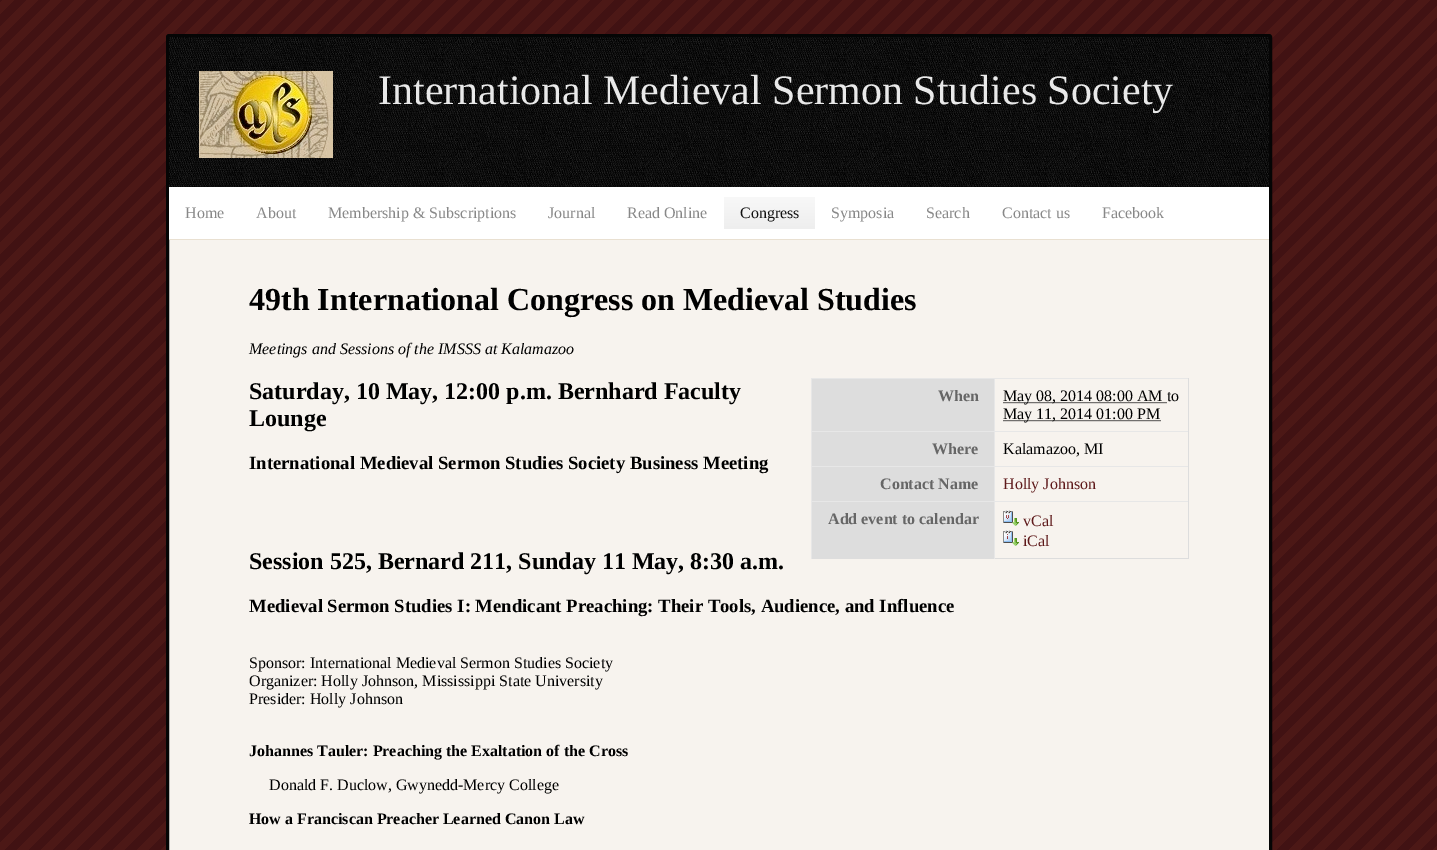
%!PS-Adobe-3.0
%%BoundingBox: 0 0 1437 850
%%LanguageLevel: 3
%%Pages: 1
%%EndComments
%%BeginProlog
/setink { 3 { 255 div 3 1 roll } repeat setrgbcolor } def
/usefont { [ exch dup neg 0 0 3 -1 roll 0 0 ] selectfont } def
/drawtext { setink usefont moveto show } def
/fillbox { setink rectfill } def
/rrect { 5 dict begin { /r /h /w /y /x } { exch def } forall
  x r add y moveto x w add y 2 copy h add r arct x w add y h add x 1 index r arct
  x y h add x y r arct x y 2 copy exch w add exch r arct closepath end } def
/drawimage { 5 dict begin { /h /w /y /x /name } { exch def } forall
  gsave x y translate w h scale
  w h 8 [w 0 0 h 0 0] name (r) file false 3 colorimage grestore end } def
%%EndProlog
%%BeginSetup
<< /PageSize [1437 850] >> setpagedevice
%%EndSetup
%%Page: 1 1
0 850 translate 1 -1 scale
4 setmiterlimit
0 0 1437 850 255 255 255 fillbox
(assets/img1.rgb) 0 0 1437 850 drawimage
247 243 238 setink
167.5 35.5 1103 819 1.5 rrect gsave fill grestore
5 5 5 setink
3 setlinewidth
stroke
(assets/img2.rgb) 169 37 1100 150 drawimage
(assets/img3.rgb) 199 71 134 87 drawimage
(International Medieval Sermon Studies Society) 378 104 /LiberationSerif-Regular 42 233 233 233 drawtext
169 187 1100 52 255 255 255 fillbox
169 239 1100 1 233 224 209 fillbox
(Home) 185 218 /LiberationSerif-Regular 16 136 136 136 drawtext
(About) 256 218 /LiberationSerif-Regular 16 136 136 136 drawtext
(Membership & Subscriptions) 328 218 /LiberationSerif-Regular 16 136 136 136 drawtext
(Journal) 548 218 /LiberationSerif-Regular 16 136 136 136 drawtext
(Read Online) 627 218 /LiberationSerif-Regular 16 136 136 136 drawtext
gsave 724 197 91 32 3 rrect clip newpath
<< /ShadingType 2 /ColorSpace /DeviceRGB /Coords [770 197 770 229] /Extend [true true] /Function << /FunctionType 2 /Domain [0 1] /C0 [0.973 0.973 0.973] /C1 [0.933 0.933 0.933] /N 1 >> >> shfill grestore
(Congress) 740 218 /LiberationSerif-Regular 16 17 17 17 drawtext
(Symposia) 831 218 /LiberationSerif-Regular 16 136 136 136 drawtext
(Search) 926 218 /LiberationSerif-Regular 16 136 136 136 drawtext
(Contact us) 1002 218 /LiberationSerif-Regular 16 136 136 136 drawtext
(Facebook) 1102 218 /LiberationSerif-Regular 16 136 136 136 drawtext
(49th International Congress on Medieval Studies) 249 310 /LiberationSerif-Bold 32 0 0 0 drawtext
(Meetings and Sessions of the IMSSS at Kalamazoo) 249 354 /LiberationSerif-Italic 16 0 0 0 drawtext
(Saturday, 10 May, 12:00 p.m. Bernhard Faculty) 249 399 /LiberationSerif-Bold 24 0 0 0 drawtext
(Lounge) 249 426 /LiberationSerif-Bold 24 0 0 0 drawtext
(International Medieval Sermon Studies Society Business Meeting) 249 469 /LiberationSerif-Bold 18.7 0 0 0 drawtext
(Session 525, Bernard 211, Sunday 11 May, 8:30 a.m.) 249 569 /LiberationSerif-Bold 24 0 0 0 drawtext
(Medieval Sermon Studies I: Mendicant Preaching: Their Tools, Audience, and Influence) 249 612 /LiberationSerif-Bold 18.7 0 0 0 drawtext
(Sponsor: International Medieval Sermon Studies Society) 249 668 /LiberationSerif-Regular 16 0 0 0 drawtext
(Organizer: Holly Johnson, Mississippi State University) 249 686 /LiberationSerif-Regular 16 0 0 0 drawtext
(Presider: Holly Johnson) 249 704 /LiberationSerif-Regular 16 0 0 0 drawtext
(Johannes Tauler: Preaching the Exaltation of the Cross) 249 756 /LiberationSerif-Bold 16 0 0 0 drawtext
(Donald F. Duclow, Gwynedd-Mercy College) 269 790 /LiberationSerif-Regular 16 0 0 0 drawtext
(How a Franciscan Preacher Learned Canon Law) 249 824 /LiberationSerif-Bold 16 0 0 0 drawtext
811 558 378 1 221 221 221 fillbox
812 379 182 52 221 221 221 fillbox
811 378 378 1 231 231 231 fillbox
811 431 378 1 231 231 231 fillbox
811 466 378 1 231 231 231 fillbox
811 501 378 1 231 231 231 fillbox
994 501 1 58 231 231 231 fillbox
994 466 1 36 231 231 231 fillbox
994 431 1 36 231 231 231 fillbox
994 378 1 54 231 231 231 fillbox
811 501 1 58 231 231 231 fillbox
811 466 1 36 231 231 231 fillbox
811 431 1 36 231 231 231 fillbox
811 378 1 54 231 231 231 fillbox
(When) 938 401 /LiberationSerif-Bold 16 102 102 102 drawtext
1188 501 1 58 221 221 221 fillbox
1188 466 1 36 221 221 221 fillbox
1188 431 1 36 221 221 221 fillbox
1188 378 1 54 221 221 221 fillbox
0 0 0 setink
1 setlinewidth
[1 1] 0 setdash
1003.5 402.5 moveto 1167 402.5 lineto stroke
(May 08, 2014 08:00 AM to) 1003 401 /LiberationSerif-Regular 16 0 0 0 drawtext
1003.5 420.5 moveto 1160.5 420.5 lineto stroke
(May 11, 2014 01:00 PM) 1003 419 /LiberationSerif-Regular 16 0 0 0 drawtext
812 432 182 34 221 221 221 fillbox
(Where) 932 454 /LiberationSerif-Bold 16 102 102 102 drawtext
(Kalamazoo, MI) 1003 454 /LiberationSerif-Regular 16 0 0 0 drawtext
812 467 182 34 221 221 221 fillbox
(Contact Name) 880 489 /LiberationSerif-Bold 16 102 102 102 drawtext
(Holly Johnson) 1003 489 /LiberationSerif-Regular 16 94 25 26 drawtext
812 502 182 56 221 221 221 fillbox
(Add event to calendar) 828 524 /LiberationSerif-Bold 16 102 102 102 drawtext
(assets/img4.rgb) 1003 510 16 16 drawimage
(vCal) 1023 526 /LiberationSerif-Regular 16 94 25 26 drawtext
(assets/img5.rgb) 1003 530 16 16 drawimage
(iCal) 1023 546 /LiberationSerif-Regular 16 94 25 26 drawtext
showpage
%%EOF
